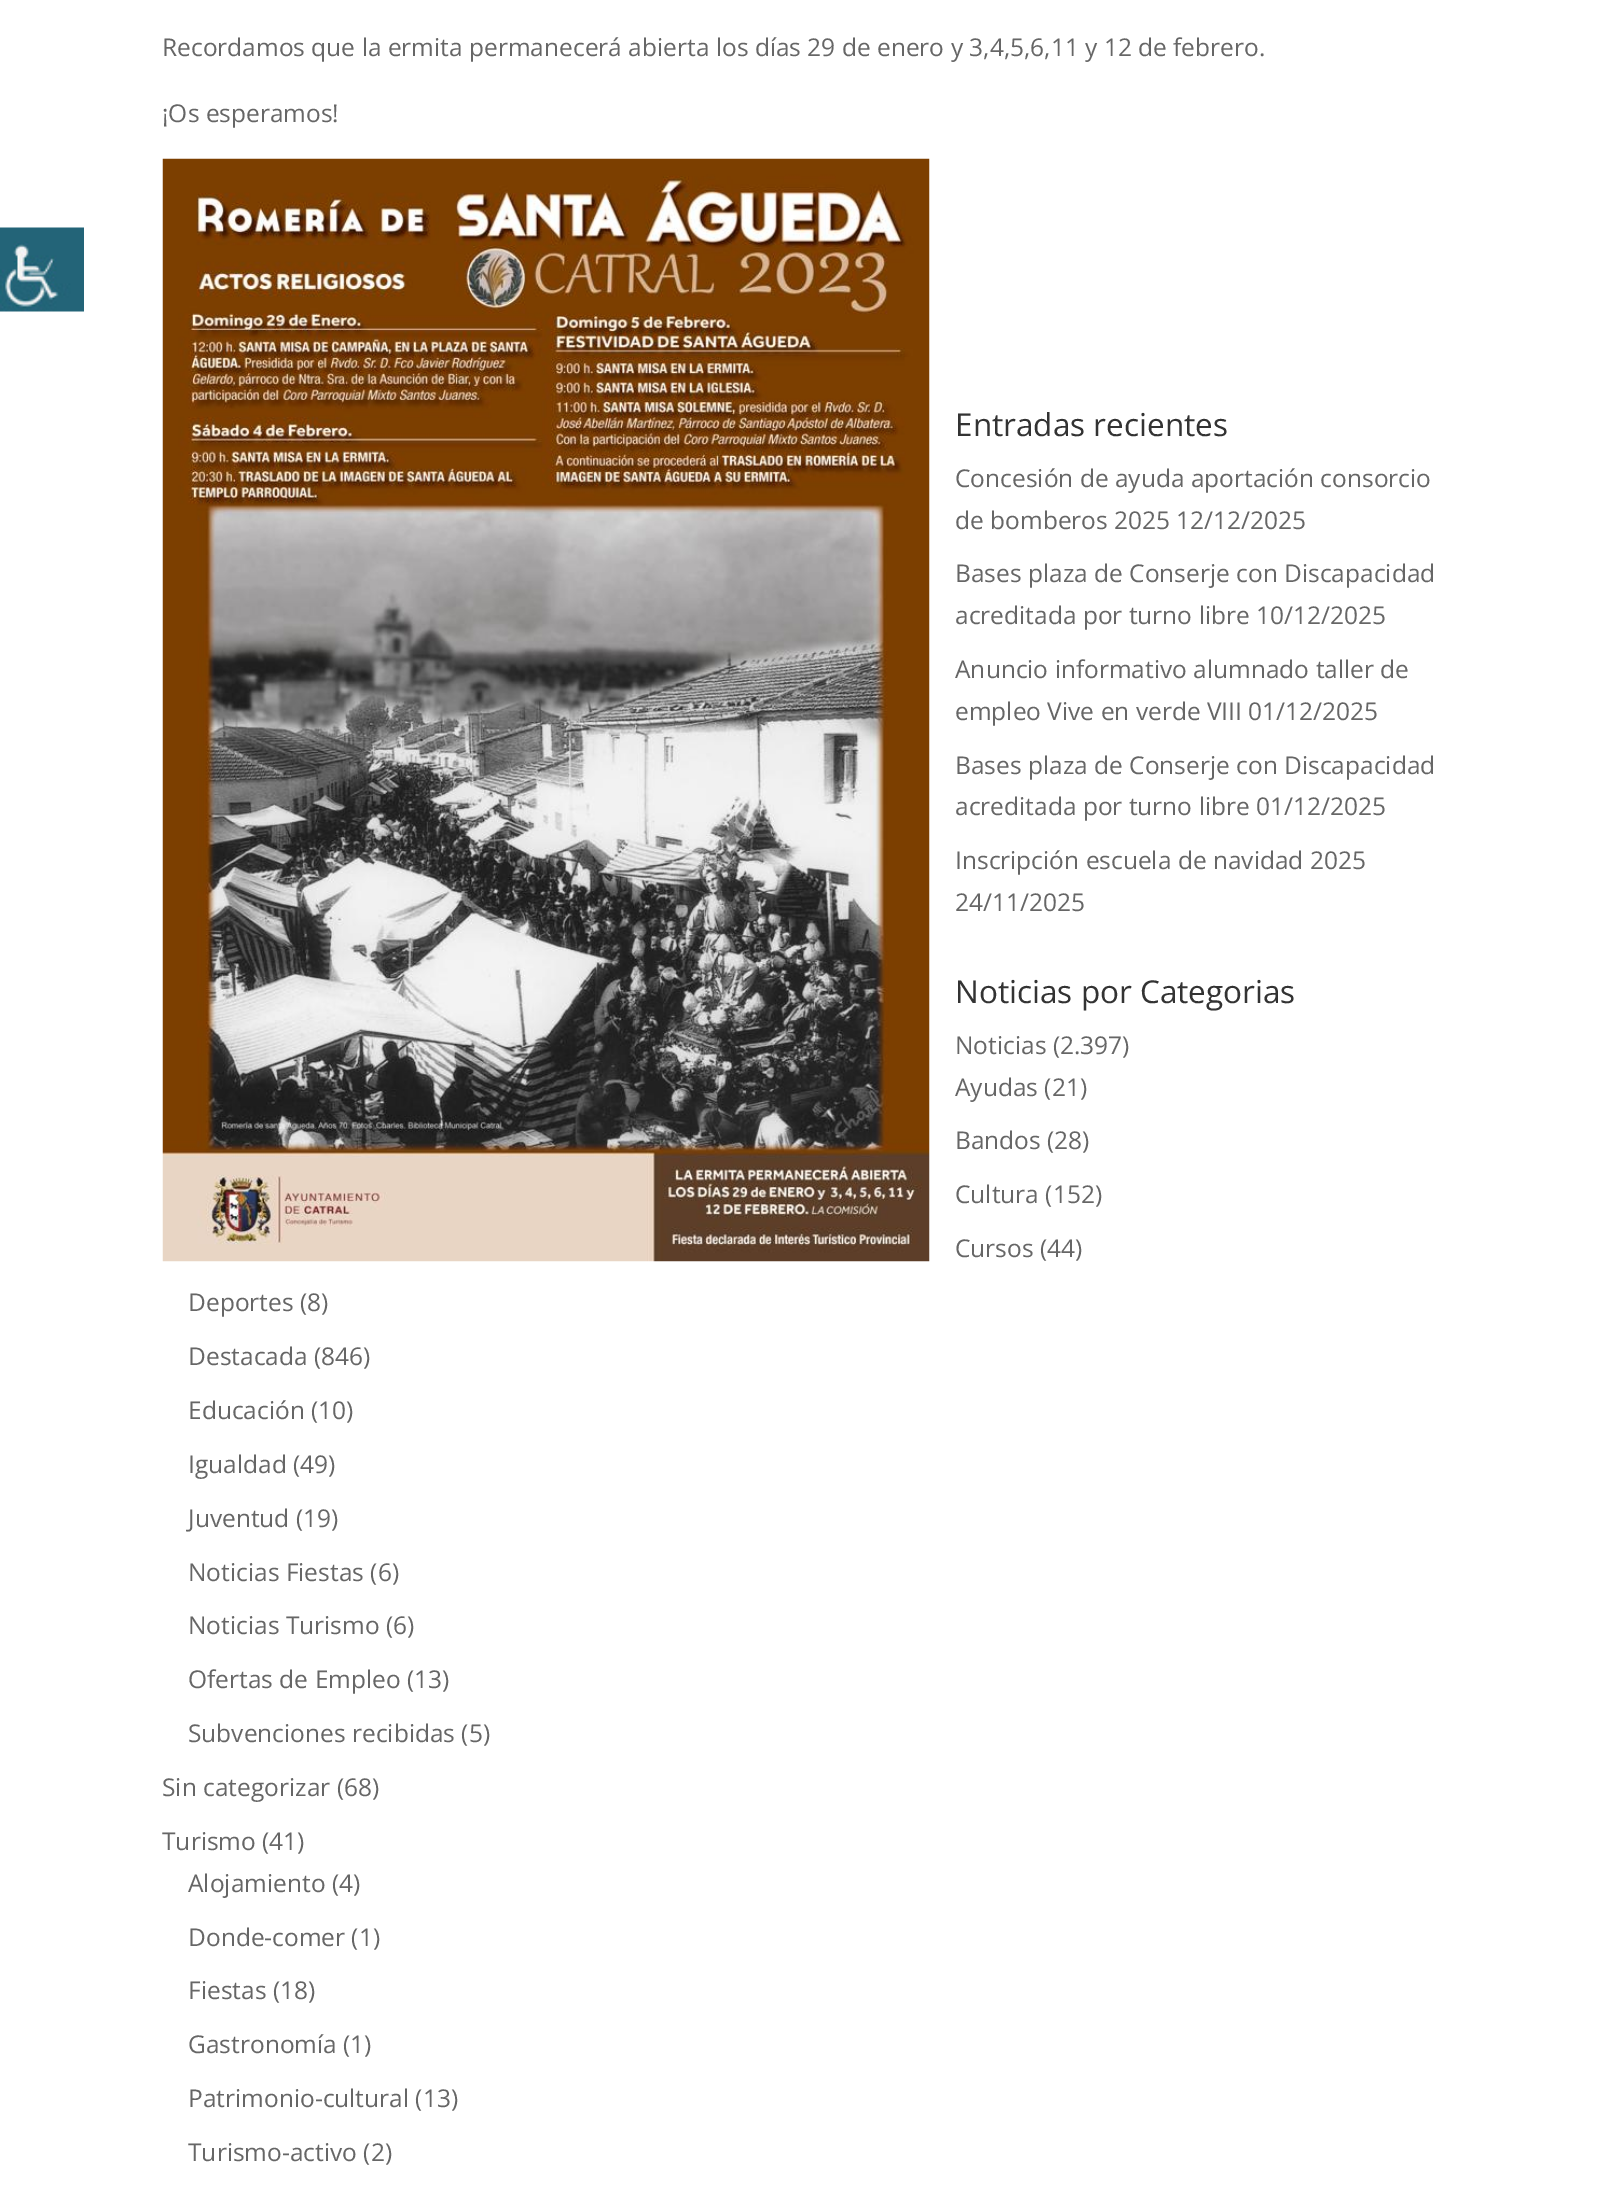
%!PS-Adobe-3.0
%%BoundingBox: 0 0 1622 2199
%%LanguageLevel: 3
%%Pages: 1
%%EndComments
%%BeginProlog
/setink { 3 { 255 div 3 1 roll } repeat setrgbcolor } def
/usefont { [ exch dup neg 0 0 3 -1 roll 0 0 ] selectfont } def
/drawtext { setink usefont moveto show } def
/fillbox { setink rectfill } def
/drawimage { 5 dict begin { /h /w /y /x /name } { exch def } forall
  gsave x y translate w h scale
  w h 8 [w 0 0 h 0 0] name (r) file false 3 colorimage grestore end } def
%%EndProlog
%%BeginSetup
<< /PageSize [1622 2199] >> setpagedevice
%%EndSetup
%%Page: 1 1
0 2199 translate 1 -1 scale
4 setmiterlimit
0 0 1622 2199 255 255 255 fillbox
(assets/img1.rgb) 0 227 84 85 drawimage
(Recordamos que la ermita permanecerá abierta los días 29 de enero y 3,4,5,6,11 y 12 de febrero.) 162 56 /OpenSans-Regular 24.5 102 102 102 drawtext
(¡Os esperamos!) 162 122 /OpenSans-Regular 24.5 102 102 102 drawtext
(assets/img2.rgb) 162 158 768 1104 drawimage
(Entradas recientes) 955 436 /OpenSans-Regular 31.5 51 51 51 drawtext
(Concesión de ayuda aportación consorcio) 955 487 /OpenSans-Regular 24.5 102 102 102 drawtext
(de bomberos 2025 12/12/2025) 955 529 /OpenSans-Regular 24.5 102 102 102 drawtext
(Bases plaza de Conserje con Discapacidad) 955 582 /OpenSans-Regular 24.5 102 102 102 drawtext
(acreditada por turno libre 10/12/2025) 955 624 /OpenSans-Regular 24.5 102 102 102 drawtext
(Anuncio informativo alumnado taller de) 955 678 /OpenSans-Regular 24.5 102 102 102 drawtext
(empleo Vive en verde VIII 01/12/2025) 955 720 /OpenSans-Regular 24.5 102 102 102 drawtext
(Bases plaza de Conserje con Discapacidad) 955 774 /OpenSans-Regular 24.5 102 102 102 drawtext
(acreditada por turno libre 01/12/2025) 955 815 /OpenSans-Regular 24.5 102 102 102 drawtext
(Inscripción escuela de navidad 2025) 955 869 /OpenSans-Regular 24.5 102 102 102 drawtext
(24/11/2025) 955 911 /OpenSans-Regular 24.5 102 102 102 drawtext
(Noticias por Categorias) 955 1003 /OpenSans-Regular 31.5 51 51 51 drawtext
(Noticias \(2.397\)) 955 1054 /OpenSans-Regular 24.5 102 102 102 drawtext
(Ayudas \(21\)) 955 1096 /OpenSans-Regular 24.5 102 102 102 drawtext
(Bandos \(28\)) 955 1149 /OpenSans-Regular 24.5 102 102 102 drawtext
(Cultura \(152\)) 955 1203 /OpenSans-Regular 24.5 102 102 102 drawtext
(Cursos \(44\)) 955 1257 /OpenSans-Regular 24.5 102 102 102 drawtext
(Deportes \(8\)) 188 1311 /OpenSans-Regular 24.5 102 102 102 drawtext
(Destacada \(846\)) 188 1365 /OpenSans-Regular 24.5 102 102 102 drawtext
(Educación \(10\)) 188 1419 /OpenSans-Regular 24.5 102 102 102 drawtext
(Igualdad \(49\)) 188 1473 /OpenSans-Regular 24.5 102 102 102 drawtext
(Juventud \(19\)) 188 1527 /OpenSans-Regular 24.5 102 102 102 drawtext
(Noticias Fiestas \(6\)) 188 1581 /OpenSans-Regular 24.5 102 102 102 drawtext
(Noticias Turismo \(6\)) 188 1634 /OpenSans-Regular 24.5 102 102 102 drawtext
(Ofertas de Empleo \(13\)) 188 1688 /OpenSans-Regular 24.5 102 102 102 drawtext
(Subvenciones recibidas \(5\)) 188 1742 /OpenSans-Regular 24.5 102 102 102 drawtext
(Sin categorizar \(68\)) 162 1796 /OpenSans-Regular 24.5 102 102 102 drawtext
(Turismo \(41\)) 162 1850 /OpenSans-Regular 24.5 102 102 102 drawtext
(Alojamiento \(4\)) 188 1892 /OpenSans-Regular 24.5 102 102 102 drawtext
(Donde-comer \(1\)) 188 1946 /OpenSans-Regular 24.5 102 102 102 drawtext
(Fiestas \(18\)) 188 1999 /OpenSans-Regular 24.5 102 102 102 drawtext
(Gastronomía \(1\)) 188 2053 /OpenSans-Regular 24.5 102 102 102 drawtext
(Patrimonio-cultural \(13\)) 188 2107 /OpenSans-Regular 24.5 102 102 102 drawtext
(Turismo-activo \(2\)) 188 2161 /OpenSans-Regular 24.5 102 102 102 drawtext
showpage
%%EOF
